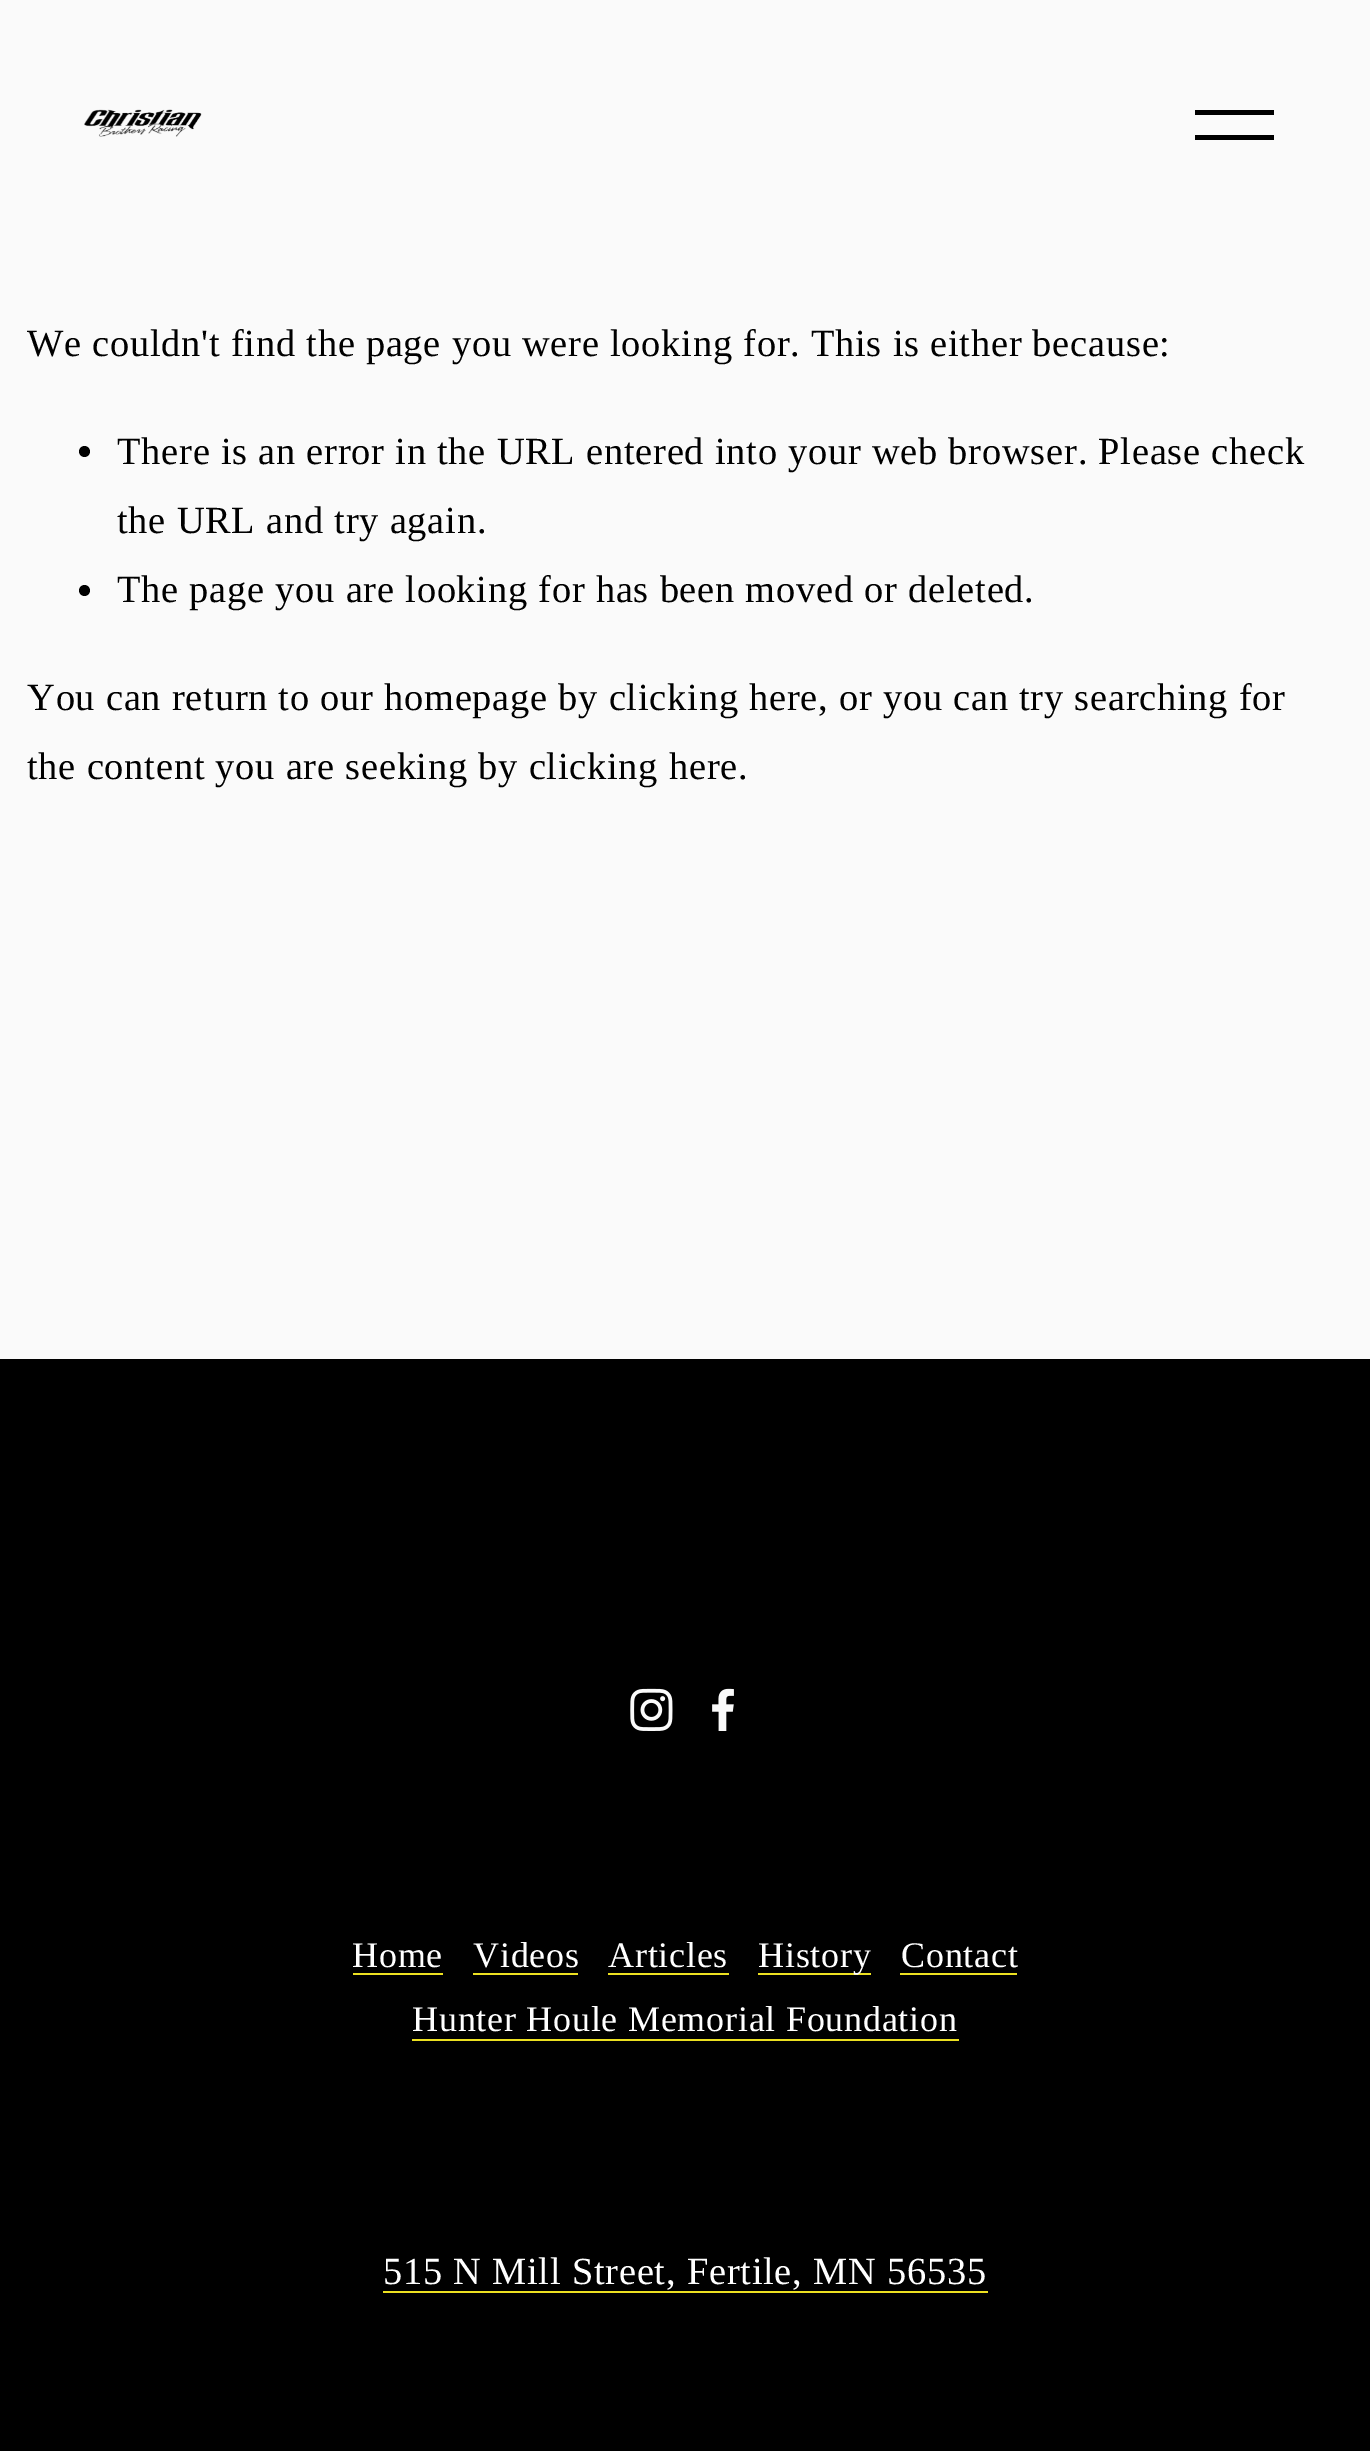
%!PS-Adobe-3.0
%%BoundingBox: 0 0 1370 2451
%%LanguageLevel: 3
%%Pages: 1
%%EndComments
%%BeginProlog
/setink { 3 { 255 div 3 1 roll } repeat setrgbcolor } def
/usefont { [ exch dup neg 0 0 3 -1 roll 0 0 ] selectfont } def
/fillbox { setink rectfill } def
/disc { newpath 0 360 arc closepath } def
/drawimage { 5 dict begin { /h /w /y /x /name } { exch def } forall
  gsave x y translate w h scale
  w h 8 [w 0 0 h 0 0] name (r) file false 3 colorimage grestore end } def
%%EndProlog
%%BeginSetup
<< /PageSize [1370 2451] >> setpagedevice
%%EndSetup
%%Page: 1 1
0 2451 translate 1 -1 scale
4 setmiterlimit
0 0 1370 2451 250 250 250 fillbox
(assets/img1.rgb) 84 109 118 28 drawimage
1195 110 79 5 0 0 0 fillbox
1195 135 79 5 0 0 0 fillbox
/LiberationSerif-Regular 38.4 usefont
27 356 moveto 0.77 0 (We couldn't find the page you were looking for. This is either because:) ashow
84.5 451.5 5.5 disc fill
117 464 moveto 0.77 0 (There is an error in the URL entered into your web browser. Please check) ashow
117 533 moveto 0.77 0 (the URL and try again.) ashow
84.5 590.5 5.5 disc fill
117 602 moveto 0.77 0 (The page you are looking for has been moved or deleted.) ashow
27 710 moveto 0.77 0 (You can return to our homepage by clicking here, or you can try searching for) ashow
27 779 moveto 0.77 0 (the content you are seeking by clicking here.) ashow
0 1359 1370 1092 0 0 0 fillbox
(assets/img2.rgb) 630 1688 43 43 drawimage
(assets/img3.rgb) 712 1688 22 43 drawimage
/LiberationSerif-Regular 36 usefont
255 255 255 setink
352 1967 moveto 0.77 0 (Home) ashow
353 1973 90 2 236 224 33 fillbox
255 255 255 setink
473 1967 moveto 0.77 0 (Videos) ashow
473 1973 105 2 236 224 33 fillbox
255 255 255 setink
608 1967 moveto 0.77 0 (Articles) ashow
608 1973 121 2 236 224 33 fillbox
758 1973 113 2 236 224 33 fillbox
255 255 255 setink
758 1967 moveto 0.77 0 (History) ashow
901 1967 moveto 0.77 0 (Contact) ashow
900 1973 117 2 236 224 33 fillbox
255 255 255 setink
412 2031 moveto 0.77 0 (Hunter Houle Memorial Foundation) ashow
412 2039 547 2 236 224 33 fillbox
/LiberationSerif-Regular 38.4 usefont
255 255 255 setink
383 2284 moveto 0.77 0 (515 N Mill Street, Fertile, MN 56535) ashow
383 2291 605 2 236 224 33 fillbox
showpage
%%EOF
